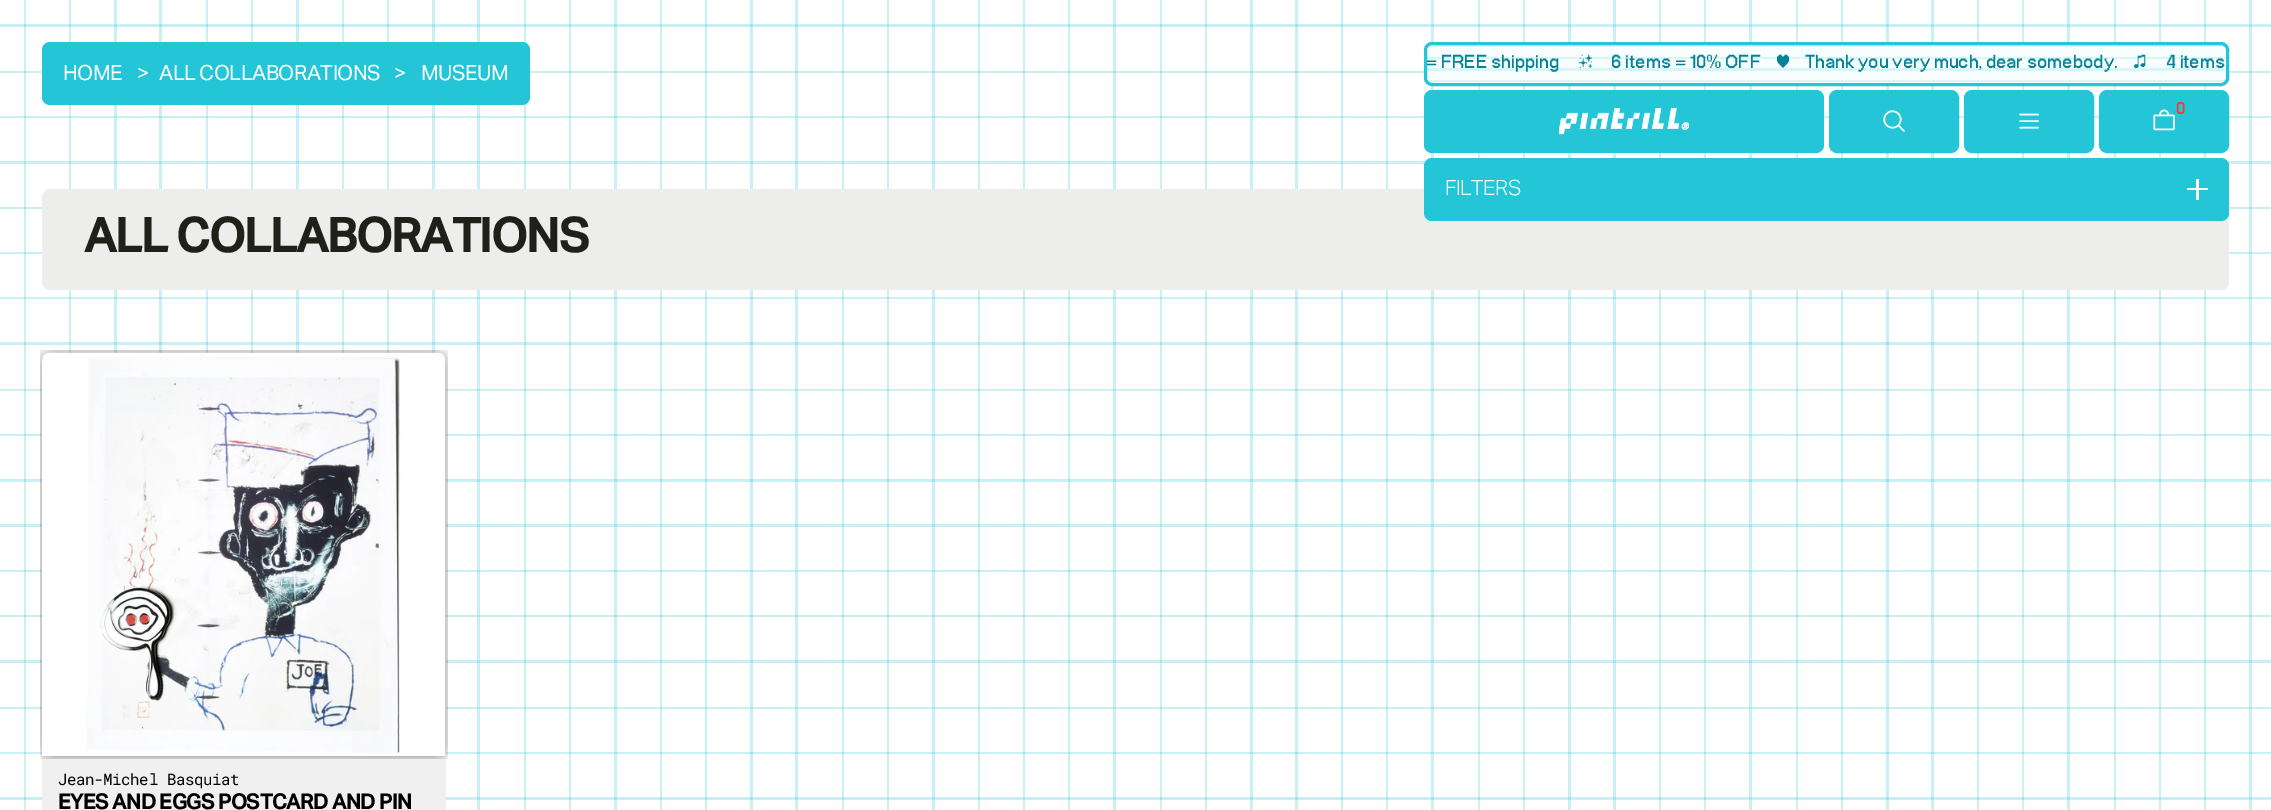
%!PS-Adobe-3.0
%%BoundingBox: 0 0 2271 810
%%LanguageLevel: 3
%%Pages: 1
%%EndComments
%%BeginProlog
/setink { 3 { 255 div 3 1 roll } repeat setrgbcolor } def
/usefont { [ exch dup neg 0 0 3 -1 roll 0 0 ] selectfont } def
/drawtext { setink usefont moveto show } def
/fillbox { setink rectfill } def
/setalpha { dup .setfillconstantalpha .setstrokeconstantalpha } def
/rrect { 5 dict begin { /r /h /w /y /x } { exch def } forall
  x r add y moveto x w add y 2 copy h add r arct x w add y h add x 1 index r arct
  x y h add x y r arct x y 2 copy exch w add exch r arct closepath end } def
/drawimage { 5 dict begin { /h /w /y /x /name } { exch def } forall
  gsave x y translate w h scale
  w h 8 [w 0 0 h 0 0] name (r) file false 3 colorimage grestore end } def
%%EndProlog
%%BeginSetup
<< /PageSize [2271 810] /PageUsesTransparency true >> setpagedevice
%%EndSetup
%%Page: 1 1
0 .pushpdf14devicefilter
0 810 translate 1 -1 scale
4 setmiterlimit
0 0 2271 810 255 255 255 fillbox
(assets/img1.rgb) 24 0 2228 810 drawimage
(assets/img2.rgb) 0 24 2271 776 drawimage
37 197 216 setink
42 42 488 63 8 rrect fill
/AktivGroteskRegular-Regular 21 usefont
255 255 255 setink
63 80 moveto -0.5 0 (HOME) ashow
137 80 moveto -0.5 0 (>) ashow
159 80 moveto -0.5 0 (ALL COLLABORATIONS) ashow
394 80 moveto -0.5 0 (>) ashow
421 80 moveto -0.5 0 (MUSEUM) ashow
237 238 235 setink
42 189 2187 101 8 rrect fill
37 197 216 setink
1424 158 805 63 8 rrect fill
/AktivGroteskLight-Light 21 usefont
255 255 255 setink
1445 195 moveto -0.5 0 (FILTERS) ashow
2187 188 21 2 255 255 255 fillbox
2196 179 3 21 255 255 255 fillbox
/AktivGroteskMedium-Bold 47.25 usefont
30 32 25 setink
84 252 moveto -1.2 0 (ALL COLLABORATIONS) ashow
240 240 240 setink
42 353 404 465 8 rrect fill
(assets/img3.rgb) 40 350 408 409 drawimage
/RobotoMono-Regular 15.75 usefont
0 0 0 setink
58 785 moveto -0.4 0 (Jean-Michel Basquiat) ashow
/AktivGroteskMedium-Bold 21 usefont
58 809 moveto -0.5 0 (EYES AND EGGS POSTCARD AND PIN) ashow
255 255 255 setink
1424 42 805 44 8 rrect fill
0.03 setalpha
1424 42 805 44 37 197 216 fillbox
gsave
1424 42 805 44 8 rrect clip newpath
0.15 setalpha
1424 45 805 2 37 197 216 fillbox
grestore
1 setalpha
1424 57 805 2 217 245 248 fillbox
1424 68 805 3 217 245 248 fillbox
gsave
1424 42 805 44 8 rrect clip newpath
0.15 setalpha
1424 80 805 2 37 197 216 fillbox
grestore
37 197 216 setink
3 setlinewidth
1425.5 43.5 802 41 6.5 rrect stroke
gsave
1427 45 799 38 5 rrect clip newpath
(= FREE shipping     ✨     6 items = 10% OFF    ♥    Thank you very much, dear somebody.    ♫) 1426 68 /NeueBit-Bold 26.25 2 132 150 drawtext
grestore
(4 items) 2166 68 /NeueBit-Bold 26.25 2 132 150 drawtext
37 197 216 setink
1424 90 400 63 8 rrect fill
(assets/img4.rgb) 1559 108 130 27 drawimage
1830 91 128 61 7 rrect gsave fill grestore
2 setlinewidth
stroke
(assets/img5.rgb) 1883 110 22 22 drawimage
1965 91 128 61 7 rrect gsave fill grestore
stroke
(assets/img6.rgb) 2019 113 20 16 drawimage
2100 91 128 61 7 rrect gsave fill grestore
stroke
(assets/img7.rgb) 2153 109 22 22 drawimage
(0) 2176 114 /NeueBit-Bold 24 255 55 40 drawtext
.poppdf14devicefilter showpage
%%EOF
